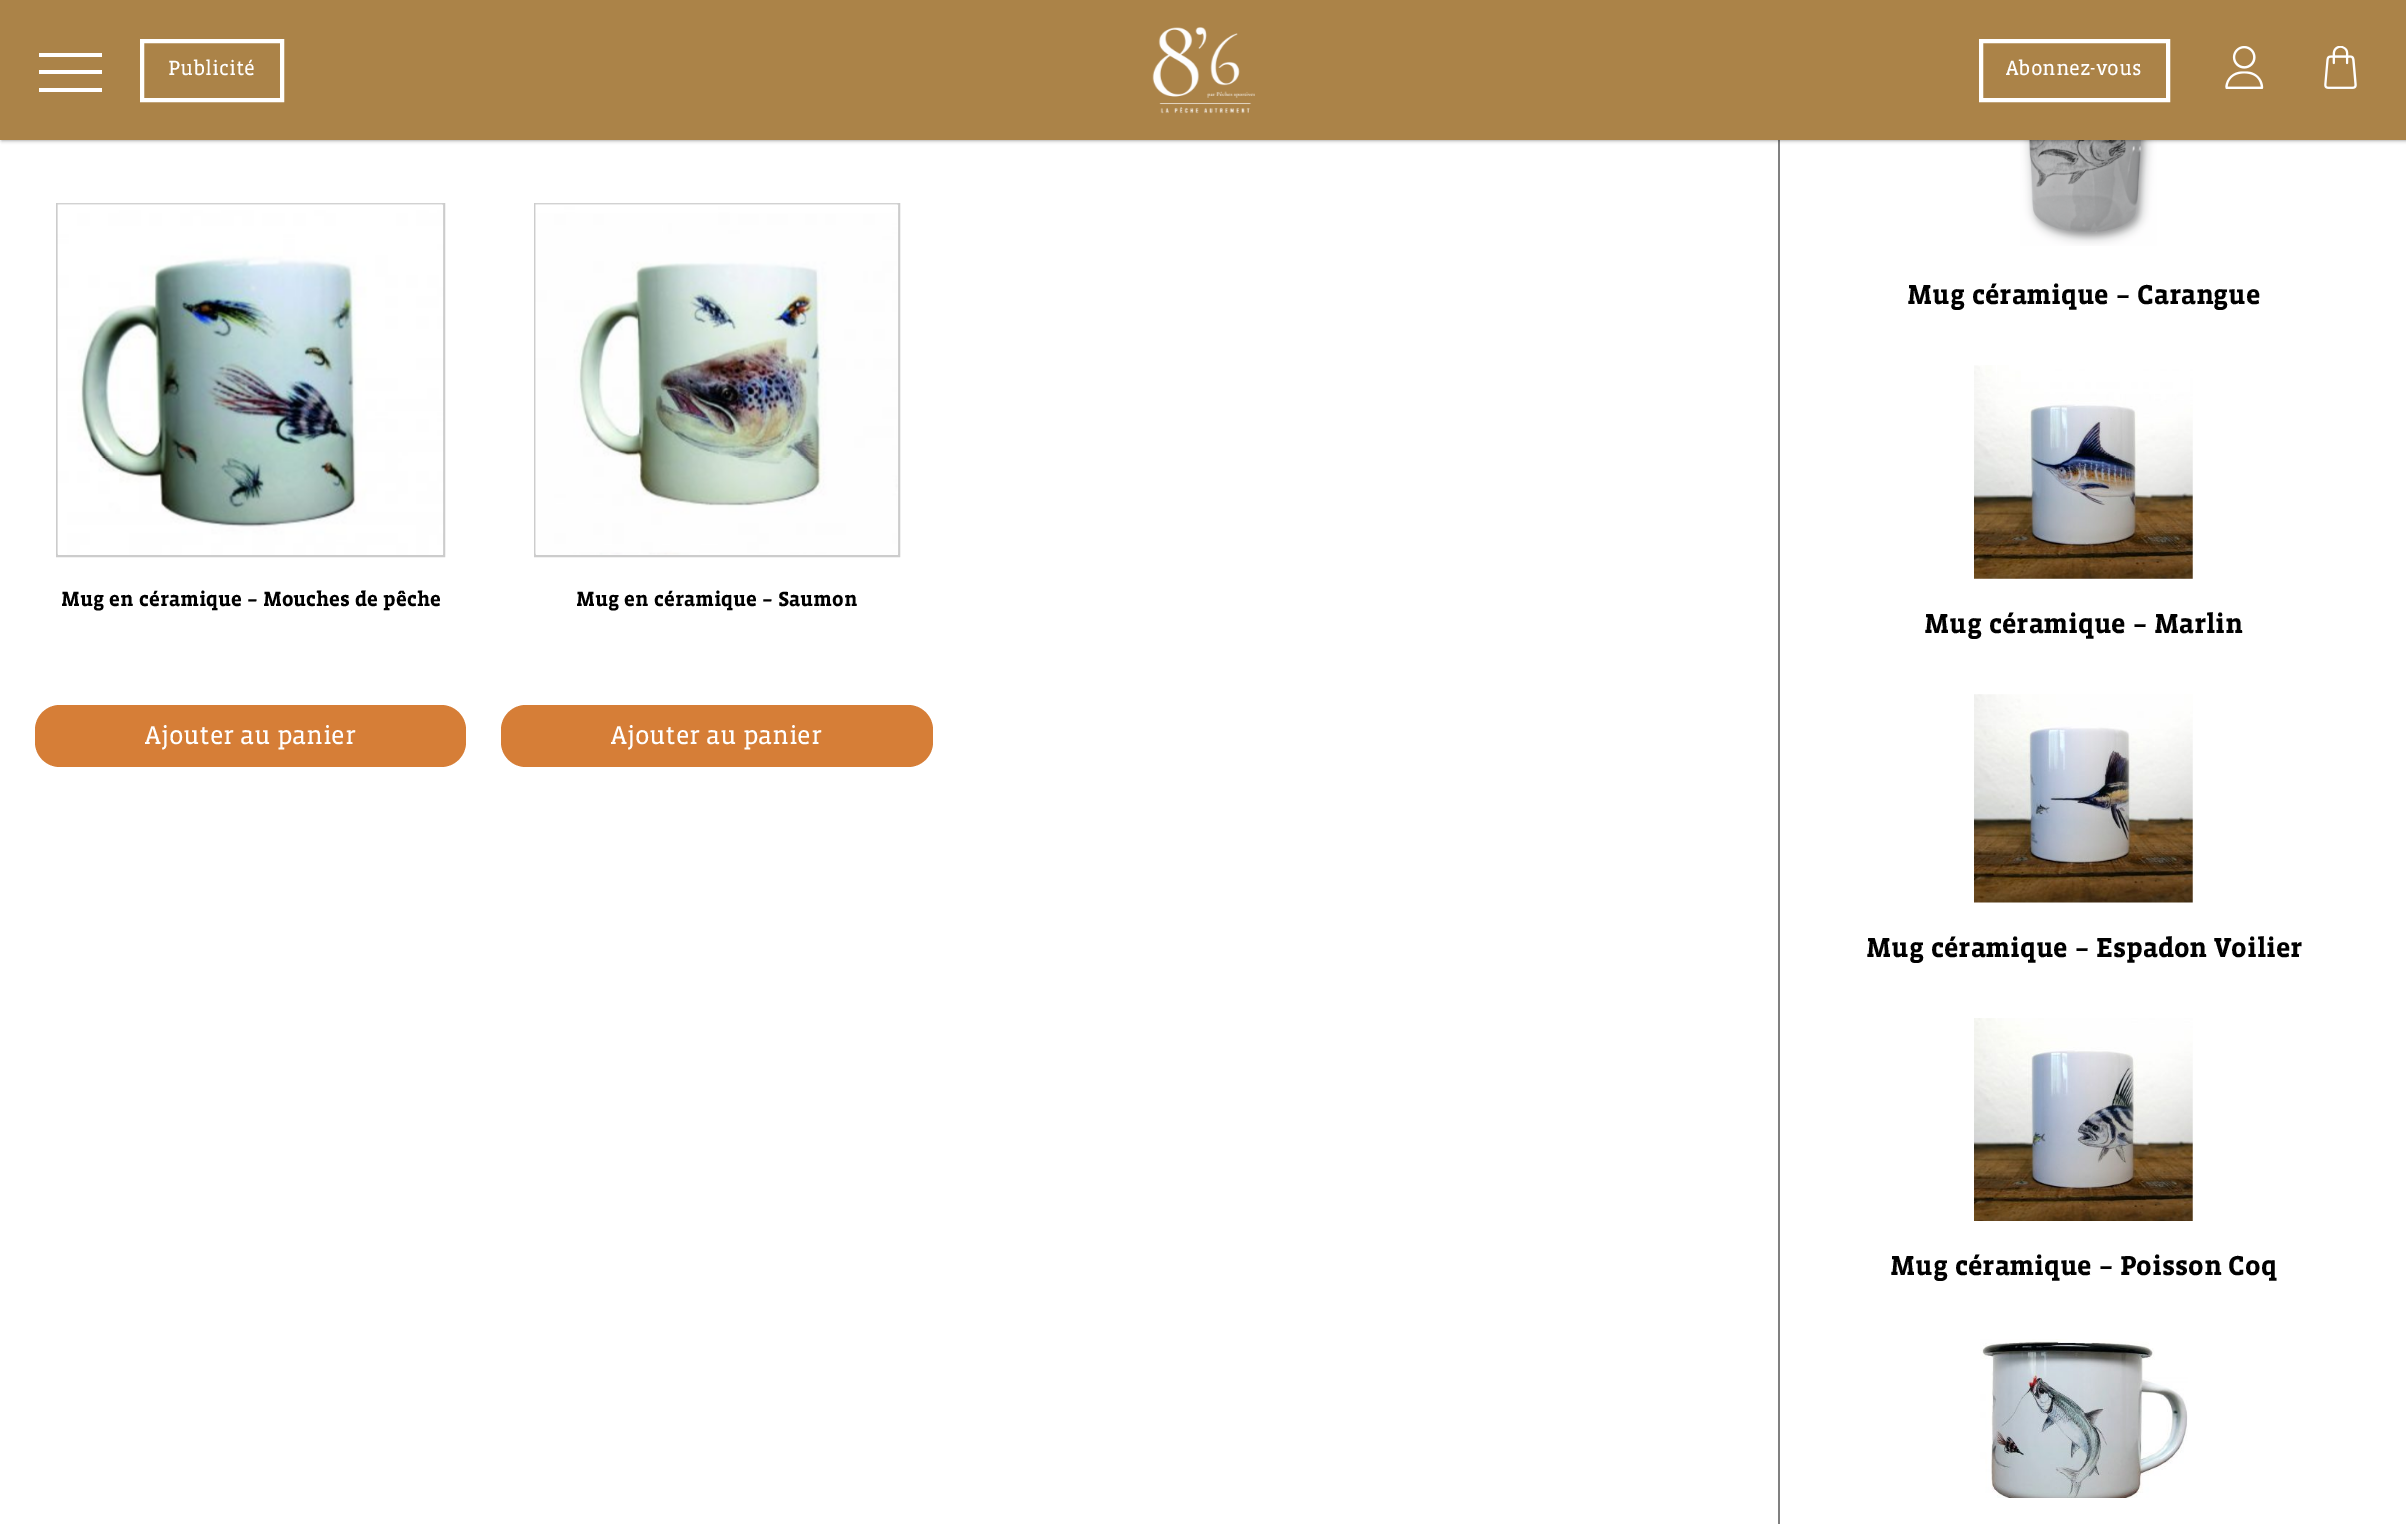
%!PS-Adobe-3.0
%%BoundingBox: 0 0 2406 1535
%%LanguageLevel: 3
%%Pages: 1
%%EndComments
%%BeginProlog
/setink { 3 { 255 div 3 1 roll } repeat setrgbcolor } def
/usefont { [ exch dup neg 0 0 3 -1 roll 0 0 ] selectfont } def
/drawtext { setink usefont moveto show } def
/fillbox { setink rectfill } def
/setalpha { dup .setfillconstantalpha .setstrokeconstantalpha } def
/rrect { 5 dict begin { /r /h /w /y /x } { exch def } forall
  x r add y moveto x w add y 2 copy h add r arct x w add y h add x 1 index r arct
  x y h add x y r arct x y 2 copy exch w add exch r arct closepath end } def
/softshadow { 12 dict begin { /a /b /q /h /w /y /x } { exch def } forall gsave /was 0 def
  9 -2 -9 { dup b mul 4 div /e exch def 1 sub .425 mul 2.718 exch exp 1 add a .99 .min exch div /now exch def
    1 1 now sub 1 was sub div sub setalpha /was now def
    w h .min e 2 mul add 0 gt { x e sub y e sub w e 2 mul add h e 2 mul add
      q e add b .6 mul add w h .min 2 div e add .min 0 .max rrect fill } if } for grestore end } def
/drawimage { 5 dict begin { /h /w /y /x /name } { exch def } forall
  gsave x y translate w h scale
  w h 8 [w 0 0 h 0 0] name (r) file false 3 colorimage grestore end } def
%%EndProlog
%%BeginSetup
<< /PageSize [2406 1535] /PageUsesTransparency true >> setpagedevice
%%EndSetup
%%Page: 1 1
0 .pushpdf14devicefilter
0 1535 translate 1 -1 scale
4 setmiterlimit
0 0 2406 1535 255 255 255 fillbox
1778 140 2 1384 128 128 128 fillbox
(assets/img6.rgb) 2020 140 137 106 drawimage
0 0 0 setink
2 0 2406 140 0 2 0.5 softshadow
0 0 2406 140 171 131 72 fillbox
39 70 63 4 255 255 255 fillbox
39 53 63 4 255 255 255 fillbox
39 88 63 4 255 255 255 fillbox
4 setlinewidth
142 41 140 59 rectstroke
(Publicité) 168 75 /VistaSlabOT-Regular 21 255 255 255 drawtext
(assets/img1.rgb) 1152 27 103 87 drawimage
1981 41 187 59 rectstroke
(Abonnez-vous) 2006 75 /VistaSlabOT-Regular 21 255 255 255 drawtext
(assets/img2.rgb) 2225 46 39 43 drawimage
(assets/img3.rgb) 2324 46 33 43 drawimage
204 204 204 setink
2 setlinewidth
57 204 387 352 rectstroke
(assets/img4.rgb) 57 203 387 352 drawimage
(Mug en céramique – Mouches de pêche) 61 606 /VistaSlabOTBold-Bold 21 0 0 0 drawtext
214 126 55 setink
35 705 431 62 25 rrect fill
(Ajouter au panier) 145 744 /VistaSlabOT-Regular 26.25 255 255 255 drawtext
204 204 204 setink
535 204 364 352 rectstroke
(assets/img5.rgb) 535 203 364 352 drawimage
(Mug en céramique – Saumon) 576 606 /VistaSlabOTBold-Bold 21 0 0 0 drawtext
214 126 55 setink
501 705 432 62 25 rrect fill
(Ajouter au panier) 611 744 /VistaSlabOT-Regular 26.25 255 255 255 drawtext
(Mug céramique – Carangue) 1907 304 /VistaSlabOTBold-Bold 28 0 0 0 drawtext
(assets/img7.rgb) 1974 365 219 214 drawimage
(Mug céramique – Marlin) 1924 633 /VistaSlabOTBold-Bold 28 0 0 0 drawtext
(assets/img8.rgb) 1974 694 219 209 drawimage
(Mug céramique – Espadon Voilier) 1866 957 /VistaSlabOTBold-Bold 28 0 0 0 drawtext
(assets/img9.rgb) 1974 1018 219 203 drawimage
(Mug céramique – Poisson Coq) 1890 1275 /VistaSlabOTBold-Bold 28 0 0 0 drawtext
(assets/img10.rgb) 1980 1339 208 159 drawimage
.poppdf14devicefilter showpage
%%EOF
